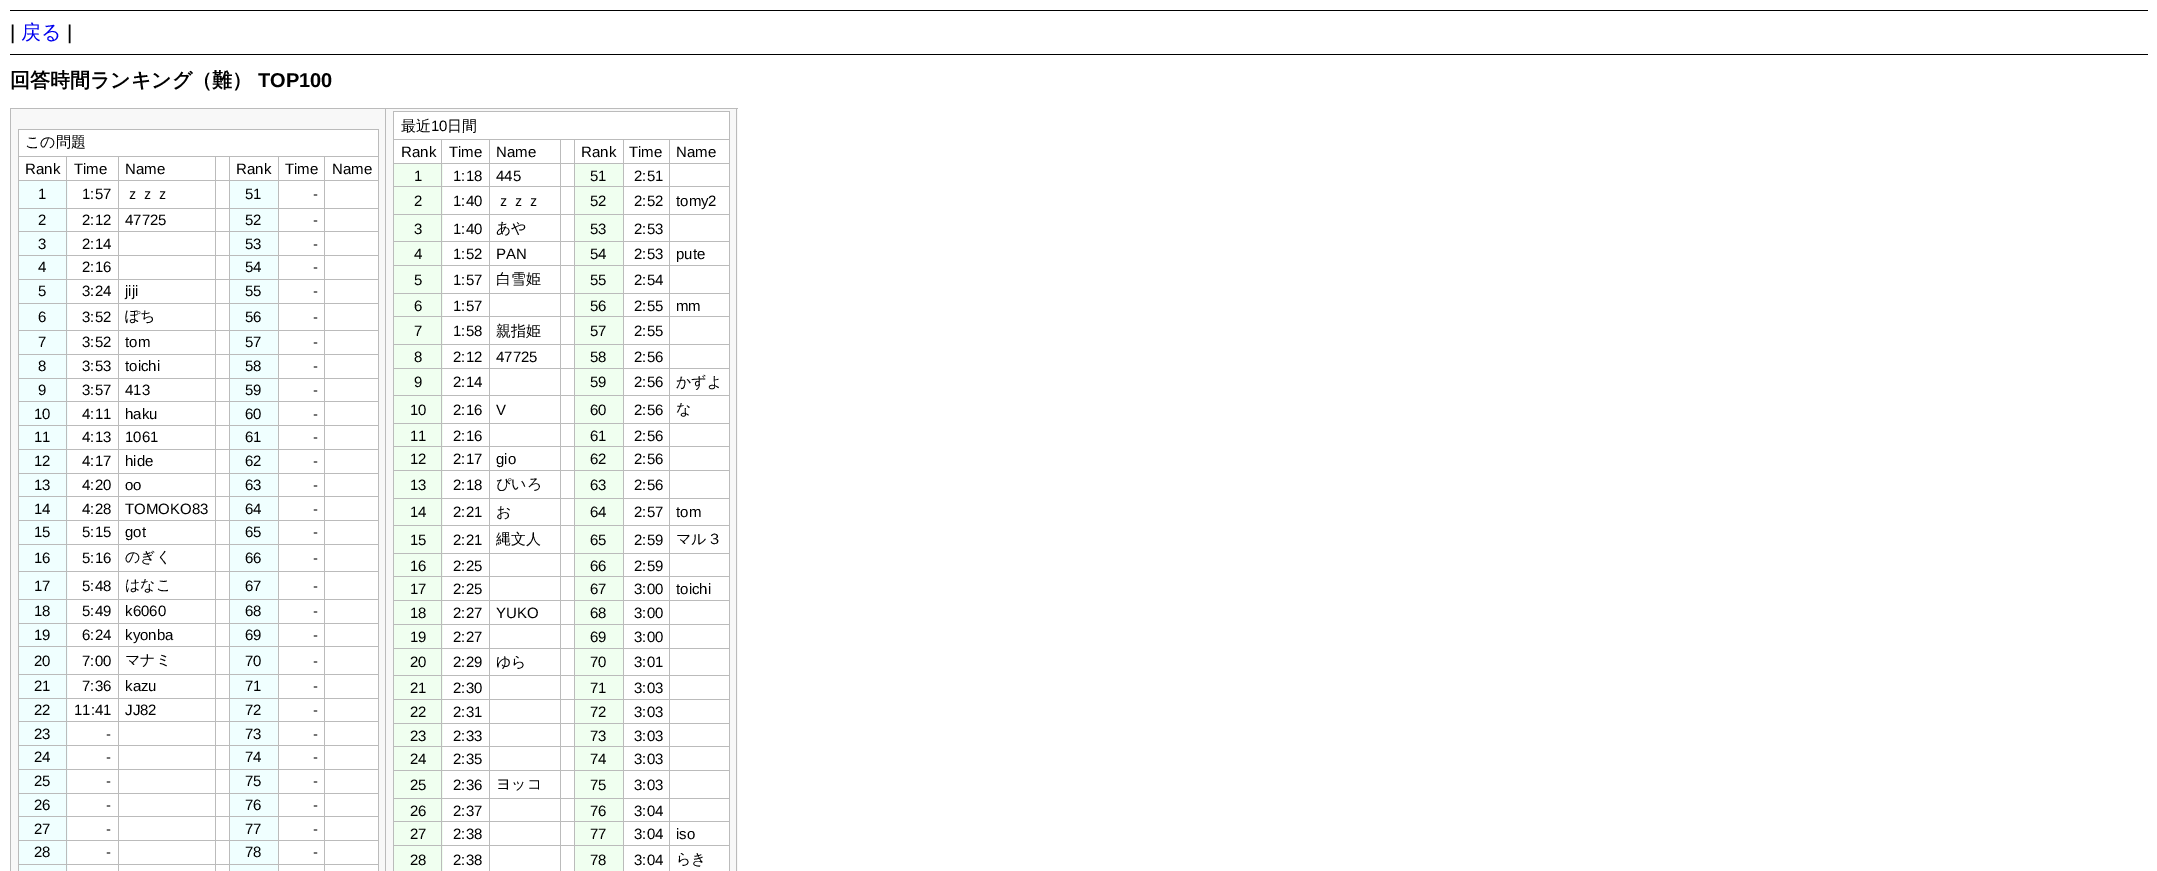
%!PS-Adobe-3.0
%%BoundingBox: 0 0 2157 871
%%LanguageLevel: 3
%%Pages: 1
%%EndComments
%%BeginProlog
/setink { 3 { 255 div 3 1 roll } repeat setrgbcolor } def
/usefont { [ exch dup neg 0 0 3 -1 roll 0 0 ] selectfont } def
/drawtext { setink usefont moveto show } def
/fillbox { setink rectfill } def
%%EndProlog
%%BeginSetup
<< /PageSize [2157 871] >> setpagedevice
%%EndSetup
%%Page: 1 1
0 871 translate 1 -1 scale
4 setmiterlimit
0 0 2157 871 255 255 255 fillbox
10 10 2138 1 0 0 0 fillbox
10 54 2138 1 0 0 0 fillbox
(|) 10 39 /LiberationSans-Regular 20 0 0 0 drawtext
(戻る) 21 39 /WenQuanYiZenHei-Medium 20 0 0 238 drawtext
(|) 67 39 /LiberationSans-Regular 20 0 0 0 drawtext
(回答時間ランキング（難）) 10 87 /WenQuanYiZenHei-Bold 20 0 0 0 drawtext
(TOP100) 258 87 /LiberationSans-Bold 20 0 0 0 drawtext
11 109 727 762 248 248 248 fillbox
385 108 353 1 187 187 187 fillbox
385 108 1 763 187 187 187 fillbox
10 108 376 1 187 187 187 fillbox
10 108 1 763 187 187 187 fillbox
19 130 359 741 255 255 255 fillbox
18 129 361 1 187 187 187 fillbox
324 156 55 1 187 187 187 fillbox
324 180 55 1 187 187 187 fillbox
324 208 55 1 187 187 187 fillbox
324 231 55 1 187 187 187 fillbox
324 255 55 1 187 187 187 fillbox
324 279 55 1 187 187 187 fillbox
324 303 55 1 187 187 187 fillbox
324 330 55 1 187 187 187 fillbox
324 354 55 1 187 187 187 fillbox
324 378 55 1 187 187 187 fillbox
324 401 55 1 187 187 187 fillbox
324 425 55 1 187 187 187 fillbox
324 449 55 1 187 187 187 fillbox
324 473 55 1 187 187 187 fillbox
324 496 55 1 187 187 187 fillbox
324 520 55 1 187 187 187 fillbox
324 544 55 1 187 187 187 fillbox
324 571 55 1 187 187 187 fillbox
324 599 55 1 187 187 187 fillbox
324 623 55 1 187 187 187 fillbox
324 646 55 1 187 187 187 fillbox
324 674 55 1 187 187 187 fillbox
324 698 55 1 187 187 187 fillbox
324 721 55 1 187 187 187 fillbox
324 745 55 1 187 187 187 fillbox
324 769 55 1 187 187 187 fillbox
324 793 55 1 187 187 187 fillbox
324 816 55 1 187 187 187 fillbox
324 840 55 1 187 187 187 fillbox
324 864 55 1 187 187 187 fillbox
378 864 1 7 187 187 187 fillbox
378 840 1 25 187 187 187 fillbox
378 816 1 25 187 187 187 fillbox
378 793 1 25 187 187 187 fillbox
378 769 1 25 187 187 187 fillbox
378 745 1 25 187 187 187 fillbox
378 721 1 25 187 187 187 fillbox
378 698 1 25 187 187 187 fillbox
378 674 1 25 187 187 187 fillbox
378 646 1 29 187 187 187 fillbox
378 623 1 25 187 187 187 fillbox
378 599 1 25 187 187 187 fillbox
378 571 1 29 187 187 187 fillbox
378 544 1 29 187 187 187 fillbox
378 520 1 25 187 187 187 fillbox
378 496 1 25 187 187 187 fillbox
378 473 1 25 187 187 187 fillbox
378 449 1 25 187 187 187 fillbox
378 425 1 25 187 187 187 fillbox
378 401 1 25 187 187 187 fillbox
378 378 1 25 187 187 187 fillbox
378 354 1 25 187 187 187 fillbox
378 330 1 25 187 187 187 fillbox
378 303 1 28 187 187 187 fillbox
378 279 1 25 187 187 187 fillbox
378 255 1 25 187 187 187 fillbox
378 231 1 25 187 187 187 fillbox
378 208 1 25 187 187 187 fillbox
378 180 1 29 187 187 187 fillbox
378 156 1 25 187 187 187 fillbox
378 129 1 29 187 187 187 fillbox
324 864 1 7 187 187 187 fillbox
278 864 47 1 187 187 187 fillbox
324 840 1 25 187 187 187 fillbox
278 840 47 1 187 187 187 fillbox
324 816 1 25 187 187 187 fillbox
278 816 47 1 187 187 187 fillbox
324 793 1 25 187 187 187 fillbox
278 793 47 1 187 187 187 fillbox
324 769 1 25 187 187 187 fillbox
278 769 47 1 187 187 187 fillbox
324 745 1 25 187 187 187 fillbox
278 745 47 1 187 187 187 fillbox
324 721 1 25 187 187 187 fillbox
278 721 47 1 187 187 187 fillbox
324 698 1 25 187 187 187 fillbox
278 698 47 1 187 187 187 fillbox
324 674 1 25 187 187 187 fillbox
278 674 47 1 187 187 187 fillbox
324 646 1 29 187 187 187 fillbox
278 646 47 1 187 187 187 fillbox
324 623 1 25 187 187 187 fillbox
278 623 47 1 187 187 187 fillbox
324 599 1 25 187 187 187 fillbox
278 599 47 1 187 187 187 fillbox
324 571 1 29 187 187 187 fillbox
278 571 47 1 187 187 187 fillbox
324 544 1 29 187 187 187 fillbox
278 544 47 1 187 187 187 fillbox
324 520 1 25 187 187 187 fillbox
278 520 47 1 187 187 187 fillbox
324 496 1 25 187 187 187 fillbox
278 496 47 1 187 187 187 fillbox
324 473 1 25 187 187 187 fillbox
278 473 47 1 187 187 187 fillbox
324 449 1 25 187 187 187 fillbox
278 449 47 1 187 187 187 fillbox
324 425 1 25 187 187 187 fillbox
278 425 47 1 187 187 187 fillbox
324 401 1 25 187 187 187 fillbox
278 401 47 1 187 187 187 fillbox
324 378 1 25 187 187 187 fillbox
278 378 47 1 187 187 187 fillbox
324 354 1 25 187 187 187 fillbox
278 354 47 1 187 187 187 fillbox
324 330 1 25 187 187 187 fillbox
278 330 47 1 187 187 187 fillbox
324 303 1 28 187 187 187 fillbox
278 303 47 1 187 187 187 fillbox
324 279 1 25 187 187 187 fillbox
278 279 47 1 187 187 187 fillbox
324 255 1 25 187 187 187 fillbox
278 255 47 1 187 187 187 fillbox
324 231 1 25 187 187 187 fillbox
278 231 47 1 187 187 187 fillbox
324 208 1 25 187 187 187 fillbox
278 208 47 1 187 187 187 fillbox
324 180 1 29 187 187 187 fillbox
278 180 47 1 187 187 187 fillbox
324 156 1 25 187 187 187 fillbox
278 156 47 1 187 187 187 fillbox
278 864 1 7 187 187 187 fillbox
229 864 50 1 187 187 187 fillbox
278 840 1 25 187 187 187 fillbox
229 840 50 1 187 187 187 fillbox
278 816 1 25 187 187 187 fillbox
229 816 50 1 187 187 187 fillbox
278 793 1 25 187 187 187 fillbox
229 793 50 1 187 187 187 fillbox
278 769 1 25 187 187 187 fillbox
229 769 50 1 187 187 187 fillbox
278 745 1 25 187 187 187 fillbox
229 745 50 1 187 187 187 fillbox
278 721 1 25 187 187 187 fillbox
229 721 50 1 187 187 187 fillbox
278 698 1 25 187 187 187 fillbox
229 698 50 1 187 187 187 fillbox
278 674 1 25 187 187 187 fillbox
229 674 50 1 187 187 187 fillbox
278 646 1 29 187 187 187 fillbox
229 646 50 1 187 187 187 fillbox
278 623 1 25 187 187 187 fillbox
229 623 50 1 187 187 187 fillbox
278 599 1 25 187 187 187 fillbox
229 599 50 1 187 187 187 fillbox
278 571 1 29 187 187 187 fillbox
229 571 50 1 187 187 187 fillbox
278 544 1 29 187 187 187 fillbox
229 544 50 1 187 187 187 fillbox
278 520 1 25 187 187 187 fillbox
229 520 50 1 187 187 187 fillbox
278 496 1 25 187 187 187 fillbox
229 496 50 1 187 187 187 fillbox
278 473 1 25 187 187 187 fillbox
229 473 50 1 187 187 187 fillbox
278 449 1 25 187 187 187 fillbox
229 449 50 1 187 187 187 fillbox
278 425 1 25 187 187 187 fillbox
229 425 50 1 187 187 187 fillbox
278 401 1 25 187 187 187 fillbox
229 401 50 1 187 187 187 fillbox
278 378 1 25 187 187 187 fillbox
229 378 50 1 187 187 187 fillbox
278 354 1 25 187 187 187 fillbox
229 354 50 1 187 187 187 fillbox
278 330 1 25 187 187 187 fillbox
229 330 50 1 187 187 187 fillbox
278 303 1 28 187 187 187 fillbox
229 303 50 1 187 187 187 fillbox
278 279 1 25 187 187 187 fillbox
229 279 50 1 187 187 187 fillbox
278 255 1 25 187 187 187 fillbox
229 255 50 1 187 187 187 fillbox
278 231 1 25 187 187 187 fillbox
229 231 50 1 187 187 187 fillbox
278 208 1 25 187 187 187 fillbox
229 208 50 1 187 187 187 fillbox
278 180 1 29 187 187 187 fillbox
229 180 50 1 187 187 187 fillbox
278 156 1 25 187 187 187 fillbox
229 156 50 1 187 187 187 fillbox
229 865 49 6 240 255 255 fillbox
229 864 1 7 187 187 187 fillbox
215 864 15 1 187 187 187 fillbox
229 840 1 25 187 187 187 fillbox
215 840 15 1 187 187 187 fillbox
229 816 1 25 187 187 187 fillbox
215 816 15 1 187 187 187 fillbox
229 793 1 25 187 187 187 fillbox
215 793 15 1 187 187 187 fillbox
229 769 1 25 187 187 187 fillbox
215 769 15 1 187 187 187 fillbox
229 745 1 25 187 187 187 fillbox
215 745 15 1 187 187 187 fillbox
229 721 1 25 187 187 187 fillbox
215 721 15 1 187 187 187 fillbox
229 698 1 25 187 187 187 fillbox
215 698 15 1 187 187 187 fillbox
229 674 1 25 187 187 187 fillbox
215 674 15 1 187 187 187 fillbox
229 646 1 29 187 187 187 fillbox
215 646 15 1 187 187 187 fillbox
229 623 1 25 187 187 187 fillbox
215 623 15 1 187 187 187 fillbox
229 599 1 25 187 187 187 fillbox
215 599 15 1 187 187 187 fillbox
229 571 1 29 187 187 187 fillbox
215 571 15 1 187 187 187 fillbox
229 544 1 29 187 187 187 fillbox
215 544 15 1 187 187 187 fillbox
229 520 1 25 187 187 187 fillbox
215 520 15 1 187 187 187 fillbox
229 496 1 25 187 187 187 fillbox
215 496 15 1 187 187 187 fillbox
229 473 1 25 187 187 187 fillbox
215 473 15 1 187 187 187 fillbox
229 449 1 25 187 187 187 fillbox
215 449 15 1 187 187 187 fillbox
229 425 1 25 187 187 187 fillbox
215 425 15 1 187 187 187 fillbox
229 401 1 25 187 187 187 fillbox
215 401 15 1 187 187 187 fillbox
229 378 1 25 187 187 187 fillbox
215 378 15 1 187 187 187 fillbox
229 354 1 25 187 187 187 fillbox
215 354 15 1 187 187 187 fillbox
229 330 1 25 187 187 187 fillbox
215 330 15 1 187 187 187 fillbox
229 303 1 28 187 187 187 fillbox
215 303 15 1 187 187 187 fillbox
229 279 1 25 187 187 187 fillbox
215 279 15 1 187 187 187 fillbox
229 255 1 25 187 187 187 fillbox
215 255 15 1 187 187 187 fillbox
229 231 1 25 187 187 187 fillbox
215 231 15 1 187 187 187 fillbox
229 208 1 25 187 187 187 fillbox
215 208 15 1 187 187 187 fillbox
229 180 1 29 187 187 187 fillbox
215 180 15 1 187 187 187 fillbox
229 156 1 25 187 187 187 fillbox
215 156 15 1 187 187 187 fillbox
215 864 1 7 187 187 187 fillbox
118 864 98 1 187 187 187 fillbox
215 840 1 25 187 187 187 fillbox
118 840 98 1 187 187 187 fillbox
215 816 1 25 187 187 187 fillbox
118 816 98 1 187 187 187 fillbox
215 793 1 25 187 187 187 fillbox
118 793 98 1 187 187 187 fillbox
215 769 1 25 187 187 187 fillbox
118 769 98 1 187 187 187 fillbox
215 745 1 25 187 187 187 fillbox
118 745 98 1 187 187 187 fillbox
215 721 1 25 187 187 187 fillbox
118 721 98 1 187 187 187 fillbox
215 698 1 25 187 187 187 fillbox
118 698 98 1 187 187 187 fillbox
215 674 1 25 187 187 187 fillbox
118 674 98 1 187 187 187 fillbox
215 646 1 29 187 187 187 fillbox
118 646 98 1 187 187 187 fillbox
215 623 1 25 187 187 187 fillbox
118 623 98 1 187 187 187 fillbox
215 599 1 25 187 187 187 fillbox
118 599 98 1 187 187 187 fillbox
215 571 1 29 187 187 187 fillbox
118 571 98 1 187 187 187 fillbox
215 544 1 29 187 187 187 fillbox
118 544 98 1 187 187 187 fillbox
215 520 1 25 187 187 187 fillbox
118 520 98 1 187 187 187 fillbox
215 496 1 25 187 187 187 fillbox
118 496 98 1 187 187 187 fillbox
215 473 1 25 187 187 187 fillbox
118 473 98 1 187 187 187 fillbox
215 449 1 25 187 187 187 fillbox
118 449 98 1 187 187 187 fillbox
215 425 1 25 187 187 187 fillbox
118 425 98 1 187 187 187 fillbox
215 401 1 25 187 187 187 fillbox
118 401 98 1 187 187 187 fillbox
215 378 1 25 187 187 187 fillbox
118 378 98 1 187 187 187 fillbox
215 354 1 25 187 187 187 fillbox
118 354 98 1 187 187 187 fillbox
215 330 1 25 187 187 187 fillbox
118 330 98 1 187 187 187 fillbox
215 303 1 28 187 187 187 fillbox
118 303 98 1 187 187 187 fillbox
215 279 1 25 187 187 187 fillbox
118 279 98 1 187 187 187 fillbox
215 255 1 25 187 187 187 fillbox
118 255 98 1 187 187 187 fillbox
215 231 1 25 187 187 187 fillbox
118 231 98 1 187 187 187 fillbox
215 208 1 25 187 187 187 fillbox
118 208 98 1 187 187 187 fillbox
215 180 1 29 187 187 187 fillbox
118 180 98 1 187 187 187 fillbox
215 156 1 25 187 187 187 fillbox
118 156 98 1 187 187 187 fillbox
118 864 1 7 187 187 187 fillbox
66 864 53 1 187 187 187 fillbox
118 840 1 25 187 187 187 fillbox
66 840 53 1 187 187 187 fillbox
118 816 1 25 187 187 187 fillbox
66 816 53 1 187 187 187 fillbox
118 793 1 25 187 187 187 fillbox
66 793 53 1 187 187 187 fillbox
118 769 1 25 187 187 187 fillbox
66 769 53 1 187 187 187 fillbox
118 745 1 25 187 187 187 fillbox
66 745 53 1 187 187 187 fillbox
118 721 1 25 187 187 187 fillbox
66 721 53 1 187 187 187 fillbox
118 698 1 25 187 187 187 fillbox
66 698 53 1 187 187 187 fillbox
118 674 1 25 187 187 187 fillbox
66 674 53 1 187 187 187 fillbox
118 646 1 29 187 187 187 fillbox
66 646 53 1 187 187 187 fillbox
118 623 1 25 187 187 187 fillbox
66 623 53 1 187 187 187 fillbox
118 599 1 25 187 187 187 fillbox
66 599 53 1 187 187 187 fillbox
118 571 1 29 187 187 187 fillbox
66 571 53 1 187 187 187 fillbox
118 544 1 29 187 187 187 fillbox
66 544 53 1 187 187 187 fillbox
118 520 1 25 187 187 187 fillbox
66 520 53 1 187 187 187 fillbox
118 496 1 25 187 187 187 fillbox
66 496 53 1 187 187 187 fillbox
118 473 1 25 187 187 187 fillbox
66 473 53 1 187 187 187 fillbox
118 449 1 25 187 187 187 fillbox
66 449 53 1 187 187 187 fillbox
118 425 1 25 187 187 187 fillbox
66 425 53 1 187 187 187 fillbox
118 401 1 25 187 187 187 fillbox
66 401 53 1 187 187 187 fillbox
118 378 1 25 187 187 187 fillbox
66 378 53 1 187 187 187 fillbox
118 354 1 25 187 187 187 fillbox
66 354 53 1 187 187 187 fillbox
118 330 1 25 187 187 187 fillbox
66 330 53 1 187 187 187 fillbox
118 303 1 28 187 187 187 fillbox
66 303 53 1 187 187 187 fillbox
118 279 1 25 187 187 187 fillbox
66 279 53 1 187 187 187 fillbox
118 255 1 25 187 187 187 fillbox
66 255 53 1 187 187 187 fillbox
118 231 1 25 187 187 187 fillbox
66 231 53 1 187 187 187 fillbox
118 208 1 25 187 187 187 fillbox
66 208 53 1 187 187 187 fillbox
118 180 1 29 187 187 187 fillbox
66 180 53 1 187 187 187 fillbox
118 156 1 25 187 187 187 fillbox
66 156 53 1 187 187 187 fillbox
19 181 49 27 240 255 255 fillbox
19 209 49 22 240 255 255 fillbox
19 232 49 23 240 255 255 fillbox
19 256 49 23 240 255 255 fillbox
19 280 49 23 240 255 255 fillbox
19 304 49 26 240 255 255 fillbox
19 331 49 23 240 255 255 fillbox
19 355 49 23 240 255 255 fillbox
19 379 49 22 240 255 255 fillbox
19 402 49 23 240 255 255 fillbox
19 426 49 23 240 255 255 fillbox
19 450 49 23 240 255 255 fillbox
19 474 49 22 240 255 255 fillbox
19 497 49 23 240 255 255 fillbox
19 521 49 23 240 255 255 fillbox
19 545 49 26 240 255 255 fillbox
19 572 49 27 240 255 255 fillbox
19 600 49 23 240 255 255 fillbox
19 624 49 22 240 255 255 fillbox
19 647 49 27 240 255 255 fillbox
19 675 49 23 240 255 255 fillbox
19 699 49 22 240 255 255 fillbox
19 722 49 23 240 255 255 fillbox
19 746 49 23 240 255 255 fillbox
19 770 49 23 240 255 255 fillbox
19 794 49 22 240 255 255 fillbox
19 817 49 23 240 255 255 fillbox
19 841 49 23 240 255 255 fillbox
19 865 49 6 240 255 255 fillbox
66 864 1 7 187 187 187 fillbox
18 864 50 1 187 187 187 fillbox
66 840 1 25 187 187 187 fillbox
18 840 50 1 187 187 187 fillbox
66 816 1 25 187 187 187 fillbox
18 816 50 1 187 187 187 fillbox
66 793 1 25 187 187 187 fillbox
18 793 50 1 187 187 187 fillbox
66 769 1 25 187 187 187 fillbox
18 769 50 1 187 187 187 fillbox
66 745 1 25 187 187 187 fillbox
18 745 50 1 187 187 187 fillbox
66 721 1 25 187 187 187 fillbox
18 721 50 1 187 187 187 fillbox
66 698 1 25 187 187 187 fillbox
18 698 50 1 187 187 187 fillbox
66 674 1 25 187 187 187 fillbox
18 674 50 1 187 187 187 fillbox
66 646 1 29 187 187 187 fillbox
18 646 50 1 187 187 187 fillbox
66 623 1 25 187 187 187 fillbox
18 623 50 1 187 187 187 fillbox
66 599 1 25 187 187 187 fillbox
18 599 50 1 187 187 187 fillbox
66 571 1 29 187 187 187 fillbox
18 571 50 1 187 187 187 fillbox
66 544 1 29 187 187 187 fillbox
18 544 50 1 187 187 187 fillbox
66 520 1 25 187 187 187 fillbox
18 520 50 1 187 187 187 fillbox
66 496 1 25 187 187 187 fillbox
18 496 50 1 187 187 187 fillbox
66 473 1 25 187 187 187 fillbox
18 473 50 1 187 187 187 fillbox
66 449 1 25 187 187 187 fillbox
18 449 50 1 187 187 187 fillbox
66 425 1 25 187 187 187 fillbox
18 425 50 1 187 187 187 fillbox
66 401 1 25 187 187 187 fillbox
18 401 50 1 187 187 187 fillbox
66 378 1 25 187 187 187 fillbox
18 378 50 1 187 187 187 fillbox
66 354 1 25 187 187 187 fillbox
18 354 50 1 187 187 187 fillbox
66 330 1 25 187 187 187 fillbox
18 330 50 1 187 187 187 fillbox
66 303 1 28 187 187 187 fillbox
18 303 50 1 187 187 187 fillbox
66 279 1 25 187 187 187 fillbox
18 279 50 1 187 187 187 fillbox
66 255 1 25 187 187 187 fillbox
18 255 50 1 187 187 187 fillbox
66 231 1 25 187 187 187 fillbox
18 231 50 1 187 187 187 fillbox
66 208 1 25 187 187 187 fillbox
18 208 50 1 187 187 187 fillbox
66 180 1 29 187 187 187 fillbox
18 180 50 1 187 187 187 fillbox
66 156 1 25 187 187 187 fillbox
18 156 50 1 187 187 187 fillbox
18 864 1 7 187 187 187 fillbox
18 840 1 25 187 187 187 fillbox
18 816 1 25 187 187 187 fillbox
18 793 1 25 187 187 187 fillbox
18 769 1 25 187 187 187 fillbox
18 745 1 25 187 187 187 fillbox
18 721 1 25 187 187 187 fillbox
18 698 1 25 187 187 187 fillbox
18 674 1 25 187 187 187 fillbox
18 646 1 29 187 187 187 fillbox
18 623 1 25 187 187 187 fillbox
18 599 1 25 187 187 187 fillbox
18 571 1 29 187 187 187 fillbox
18 544 1 29 187 187 187 fillbox
18 520 1 25 187 187 187 fillbox
18 496 1 25 187 187 187 fillbox
18 473 1 25 187 187 187 fillbox
18 449 1 25 187 187 187 fillbox
18 425 1 25 187 187 187 fillbox
18 401 1 25 187 187 187 fillbox
18 378 1 25 187 187 187 fillbox
18 354 1 25 187 187 187 fillbox
18 330 1 25 187 187 187 fillbox
18 303 1 28 187 187 187 fillbox
18 279 1 25 187 187 187 fillbox
18 255 1 25 187 187 187 fillbox
18 231 1 25 187 187 187 fillbox
18 208 1 25 187 187 187 fillbox
18 180 1 29 187 187 187 fillbox
18 156 1 25 187 187 187 fillbox
18 129 1 29 187 187 187 fillbox
(この問題) 25 147 /WenQuanYiZenHei-Medium 15 0 0 0 drawtext
(Rank) 25 174 /LiberationSans-Regular 15 0 0 0 drawtext
(Time) 74 174 /LiberationSans-Regular 15 0 0 0 drawtext
(Name) 125 174 /LiberationSans-Regular 15 0 0 0 drawtext
(Rank) 236 174 /LiberationSans-Regular 15 0 0 0 drawtext
(Time) 285 174 /LiberationSans-Regular 15 0 0 0 drawtext
(Name) 332 174 /LiberationSans-Regular 15 0 0 0 drawtext
(1) 38 199 /LiberationSans-Regular 15 0 0 0 drawtext
(1:57) 82 199 /LiberationSans-Regular 15 0 0 0 drawtext
(ｚｚｚ) 125 199 /WenQuanYiZenHei-Medium 15 0 0 0 drawtext
230 181 48 27 240 255 255 fillbox
(51) 245 199 /LiberationSans-Regular 15 0 0 0 drawtext
(-) 313 199 /LiberationSans-Regular 15 0 0 0 drawtext
(2) 38 225 /LiberationSans-Regular 15 0 0 0 drawtext
(2:12) 82 225 /LiberationSans-Regular 15 0 0 0 drawtext
(47725) 125 225 /LiberationSans-Regular 15 0 0 0 drawtext
230 209 48 22 240 255 255 fillbox
(52) 245 225 /LiberationSans-Regular 15 0 0 0 drawtext
(-) 313 225 /LiberationSans-Regular 15 0 0 0 drawtext
(3) 38 249 /LiberationSans-Regular 15 0 0 0 drawtext
(2:14) 82 249 /LiberationSans-Regular 15 0 0 0 drawtext
230 232 48 23 240 255 255 fillbox
(53) 245 249 /LiberationSans-Regular 15 0 0 0 drawtext
(-) 313 249 /LiberationSans-Regular 15 0 0 0 drawtext
(4) 38 272 /LiberationSans-Regular 15 0 0 0 drawtext
(2:16) 82 272 /LiberationSans-Regular 15 0 0 0 drawtext
230 256 48 23 240 255 255 fillbox
(54) 245 272 /LiberationSans-Regular 15 0 0 0 drawtext
(-) 313 272 /LiberationSans-Regular 15 0 0 0 drawtext
(5) 38 296 /LiberationSans-Regular 15 0 0 0 drawtext
(3:24) 82 296 /LiberationSans-Regular 15 0 0 0 drawtext
(jiji) 125 296 /LiberationSans-Regular 15 0 0 0 drawtext
230 280 48 23 240 255 255 fillbox
(55) 245 296 /LiberationSans-Regular 15 0 0 0 drawtext
(-) 313 296 /LiberationSans-Regular 15 0 0 0 drawtext
(6) 38 322 /LiberationSans-Regular 15 0 0 0 drawtext
(3:52) 82 322 /LiberationSans-Regular 15 0 0 0 drawtext
(ぽち) 125 321 /WenQuanYiZenHei-Medium 15 0 0 0 drawtext
230 304 48 26 240 255 255 fillbox
(56) 245 322 /LiberationSans-Regular 15 0 0 0 drawtext
(-) 313 322 /LiberationSans-Regular 15 0 0 0 drawtext
(7) 38 347 /LiberationSans-Regular 15 0 0 0 drawtext
(3:52) 82 347 /LiberationSans-Regular 15 0 0 0 drawtext
(tom) 125 347 /LiberationSans-Regular 15 0 0 0 drawtext
230 331 48 23 240 255 255 fillbox
(57) 245 347 /LiberationSans-Regular 15 0 0 0 drawtext
(-) 313 347 /LiberationSans-Regular 15 0 0 0 drawtext
(8) 38 371 /LiberationSans-Regular 15 0 0 0 drawtext
(3:53) 82 371 /LiberationSans-Regular 15 0 0 0 drawtext
(toichi) 125 371 /LiberationSans-Regular 15 0 0 0 drawtext
230 355 48 23 240 255 255 fillbox
(58) 245 371 /LiberationSans-Regular 15 0 0 0 drawtext
(-) 313 371 /LiberationSans-Regular 15 0 0 0 drawtext
(9) 38 395 /LiberationSans-Regular 15 0 0 0 drawtext
(3:57) 82 395 /LiberationSans-Regular 15 0 0 0 drawtext
(413) 125 395 /LiberationSans-Regular 15 0 0 0 drawtext
230 379 48 22 240 255 255 fillbox
(59) 245 395 /LiberationSans-Regular 15 0 0 0 drawtext
(-) 313 395 /LiberationSans-Regular 15 0 0 0 drawtext
(10) 34 419 /LiberationSans-Regular 15 0 0 0 drawtext
(4:11) 82 419 /LiberationSans-Regular 15 0 0 0 drawtext
(haku) 125 419 /LiberationSans-Regular 15 0 0 0 drawtext
230 402 48 23 240 255 255 fillbox
(60) 245 419 /LiberationSans-Regular 15 0 0 0 drawtext
(-) 313 419 /LiberationSans-Regular 15 0 0 0 drawtext
(11) 34 442 /LiberationSans-Regular 15 0 0 0 drawtext
(4:13) 82 442 /LiberationSans-Regular 15 0 0 0 drawtext
(1061) 125 442 /LiberationSans-Regular 15 0 0 0 drawtext
230 426 48 23 240 255 255 fillbox
(61) 245 442 /LiberationSans-Regular 15 0 0 0 drawtext
(-) 313 442 /LiberationSans-Regular 15 0 0 0 drawtext
(12) 34 466 /LiberationSans-Regular 15 0 0 0 drawtext
(4:17) 82 466 /LiberationSans-Regular 15 0 0 0 drawtext
(hide) 125 466 /LiberationSans-Regular 15 0 0 0 drawtext
230 450 48 23 240 255 255 fillbox
(62) 245 466 /LiberationSans-Regular 15 0 0 0 drawtext
(-) 313 466 /LiberationSans-Regular 15 0 0 0 drawtext
(13) 34 490 /LiberationSans-Regular 15 0 0 0 drawtext
(4:20) 82 490 /LiberationSans-Regular 15 0 0 0 drawtext
(oo) 125 490 /LiberationSans-Regular 15 0 0 0 drawtext
230 474 48 22 240 255 255 fillbox
(63) 245 490 /LiberationSans-Regular 15 0 0 0 drawtext
(-) 313 490 /LiberationSans-Regular 15 0 0 0 drawtext
(14) 34 514 /LiberationSans-Regular 15 0 0 0 drawtext
(4:28) 82 514 /LiberationSans-Regular 15 0 0 0 drawtext
(TOMOKO83) 125 514 /LiberationSans-Regular 15 0 0 0 drawtext
230 497 48 23 240 255 255 fillbox
(64) 245 514 /LiberationSans-Regular 15 0 0 0 drawtext
(-) 313 514 /LiberationSans-Regular 15 0 0 0 drawtext
(15) 34 537 /LiberationSans-Regular 15 0 0 0 drawtext
(5:15) 82 537 /LiberationSans-Regular 15 0 0 0 drawtext
(got) 125 537 /LiberationSans-Regular 15 0 0 0 drawtext
230 521 48 23 240 255 255 fillbox
(65) 245 537 /LiberationSans-Regular 15 0 0 0 drawtext
(-) 313 537 /LiberationSans-Regular 15 0 0 0 drawtext
(16) 34 563 /LiberationSans-Regular 15 0 0 0 drawtext
(5:16) 82 563 /LiberationSans-Regular 15 0 0 0 drawtext
(のぎく) 125 562 /WenQuanYiZenHei-Medium 15 0 0 0 drawtext
230 545 48 26 240 255 255 fillbox
(66) 245 563 /LiberationSans-Regular 15 0 0 0 drawtext
(-) 313 563 /LiberationSans-Regular 15 0 0 0 drawtext
(17) 34 591 /LiberationSans-Regular 15 0 0 0 drawtext
(5:48) 82 591 /LiberationSans-Regular 15 0 0 0 drawtext
(はなこ) 125 590 /WenQuanYiZenHei-Medium 15 0 0 0 drawtext
230 572 48 27 240 255 255 fillbox
(67) 245 591 /LiberationSans-Regular 15 0 0 0 drawtext
(-) 313 591 /LiberationSans-Regular 15 0 0 0 drawtext
(18) 34 616 /LiberationSans-Regular 15 0 0 0 drawtext
(5:49) 82 616 /LiberationSans-Regular 15 0 0 0 drawtext
(k6060) 125 616 /LiberationSans-Regular 15 0 0 0 drawtext
230 600 48 23 240 255 255 fillbox
(68) 245 616 /LiberationSans-Regular 15 0 0 0 drawtext
(-) 313 616 /LiberationSans-Regular 15 0 0 0 drawtext
(19) 34 640 /LiberationSans-Regular 15 0 0 0 drawtext
(6:24) 82 640 /LiberationSans-Regular 15 0 0 0 drawtext
(kyonba) 125 640 /LiberationSans-Regular 15 0 0 0 drawtext
230 624 48 22 240 255 255 fillbox
(69) 245 640 /LiberationSans-Regular 15 0 0 0 drawtext
(-) 313 640 /LiberationSans-Regular 15 0 0 0 drawtext
(20) 34 666 /LiberationSans-Regular 15 0 0 0 drawtext
(7:00) 82 666 /LiberationSans-Regular 15 0 0 0 drawtext
(マナミ) 125 665 /WenQuanYiZenHei-Medium 15 0 0 0 drawtext
230 647 48 27 240 255 255 fillbox
(70) 245 666 /LiberationSans-Regular 15 0 0 0 drawtext
(-) 313 666 /LiberationSans-Regular 15 0 0 0 drawtext
(21) 34 691 /LiberationSans-Regular 15 0 0 0 drawtext
(7:36) 82 691 /LiberationSans-Regular 15 0 0 0 drawtext
(kazu) 125 691 /LiberationSans-Regular 15 0 0 0 drawtext
230 675 48 23 240 255 255 fillbox
(71) 245 691 /LiberationSans-Regular 15 0 0 0 drawtext
(-) 313 691 /LiberationSans-Regular 15 0 0 0 drawtext
(22) 34 715 /LiberationSans-Regular 15 0 0 0 drawtext
(11:41) 74 715 /LiberationSans-Regular 15 0 0 0 drawtext
(JJ82) 125 715 /LiberationSans-Regular 15 0 0 0 drawtext
230 699 48 22 240 255 255 fillbox
(72) 245 715 /LiberationSans-Regular 15 0 0 0 drawtext
(-) 313 715 /LiberationSans-Regular 15 0 0 0 drawtext
(23) 34 739 /LiberationSans-Regular 15 0 0 0 drawtext
(-) 106 739 /LiberationSans-Regular 15 0 0 0 drawtext
230 722 48 23 240 255 255 fillbox
(73) 245 739 /LiberationSans-Regular 15 0 0 0 drawtext
(-) 313 739 /LiberationSans-Regular 15 0 0 0 drawtext
(24) 34 762 /LiberationSans-Regular 15 0 0 0 drawtext
(-) 106 762 /LiberationSans-Regular 15 0 0 0 drawtext
230 746 48 23 240 255 255 fillbox
(74) 245 762 /LiberationSans-Regular 15 0 0 0 drawtext
(-) 313 762 /LiberationSans-Regular 15 0 0 0 drawtext
(25) 34 786 /LiberationSans-Regular 15 0 0 0 drawtext
(-) 106 786 /LiberationSans-Regular 15 0 0 0 drawtext
230 770 48 23 240 255 255 fillbox
(75) 245 786 /LiberationSans-Regular 15 0 0 0 drawtext
(-) 313 786 /LiberationSans-Regular 15 0 0 0 drawtext
(26) 34 810 /LiberationSans-Regular 15 0 0 0 drawtext
(-) 106 810 /LiberationSans-Regular 15 0 0 0 drawtext
230 794 48 22 240 255 255 fillbox
(76) 245 810 /LiberationSans-Regular 15 0 0 0 drawtext
(-) 313 810 /LiberationSans-Regular 15 0 0 0 drawtext
(27) 34 834 /LiberationSans-Regular 15 0 0 0 drawtext
(-) 106 834 /LiberationSans-Regular 15 0 0 0 drawtext
230 817 48 23 240 255 255 fillbox
(77) 245 834 /LiberationSans-Regular 15 0 0 0 drawtext
(-) 313 834 /LiberationSans-Regular 15 0 0 0 drawtext
(28) 34 857 /LiberationSans-Regular 15 0 0 0 drawtext
(-) 106 857 /LiberationSans-Regular 15 0 0 0 drawtext
230 841 48 23 240 255 255 fillbox
(78) 245 857 /LiberationSans-Regular 15 0 0 0 drawtext
(-) 313 857 /LiberationSans-Regular 15 0 0 0 drawtext
736 108 1 763 187 187 187 fillbox
394 112 335 759 255 255 255 fillbox
393 111 337 1 187 187 187 fillbox
669 139 61 1 187 187 187 fillbox
669 163 61 1 187 187 187 fillbox
669 186 61 1 187 187 187 fillbox
669 214 61 1 187 187 187 fillbox
669 241 61 1 187 187 187 fillbox
669 265 61 1 187 187 187 fillbox
669 293 61 1 187 187 187 fillbox
669 316 61 1 187 187 187 fillbox
669 344 61 1 187 187 187 fillbox
669 368 61 1 187 187 187 fillbox
669 395 61 1 187 187 187 fillbox
669 423 61 1 187 187 187 fillbox
669 446 61 1 187 187 187 fillbox
669 470 61 1 187 187 187 fillbox
669 498 61 1 187 187 187 fillbox
669 525 61 1 187 187 187 fillbox
669 553 61 1 187 187 187 fillbox
669 576 61 1 187 187 187 fillbox
669 600 61 1 187 187 187 fillbox
669 624 61 1 187 187 187 fillbox
669 648 61 1 187 187 187 fillbox
669 675 61 1 187 187 187 fillbox
669 699 61 1 187 187 187 fillbox
669 723 61 1 187 187 187 fillbox
669 746 61 1 187 187 187 fillbox
669 770 61 1 187 187 187 fillbox
669 798 61 1 187 187 187 fillbox
669 821 61 1 187 187 187 fillbox
669 845 61 1 187 187 187 fillbox
729 845 1 26 187 187 187 fillbox
729 821 1 25 187 187 187 fillbox
729 798 1 25 187 187 187 fillbox
729 770 1 29 187 187 187 fillbox
729 746 1 25 187 187 187 fillbox
729 723 1 25 187 187 187 fillbox
729 699 1 25 187 187 187 fillbox
729 675 1 25 187 187 187 fillbox
729 648 1 28 187 187 187 fillbox
729 624 1 25 187 187 187 fillbox
729 600 1 25 187 187 187 fillbox
729 576 1 25 187 187 187 fillbox
729 553 1 25 187 187 187 fillbox
729 525 1 29 187 187 187 fillbox
729 498 1 28 187 187 187 fillbox
729 470 1 29 187 187 187 fillbox
729 446 1 25 187 187 187 fillbox
729 423 1 25 187 187 187 fillbox
729 395 1 29 187 187 187 fillbox
729 368 1 28 187 187 187 fillbox
729 344 1 25 187 187 187 fillbox
729 316 1 29 187 187 187 fillbox
729 293 1 25 187 187 187 fillbox
729 265 1 29 187 187 187 fillbox
729 241 1 25 187 187 187 fillbox
729 214 1 29 187 187 187 fillbox
729 186 1 29 187 187 187 fillbox
729 163 1 25 187 187 187 fillbox
729 139 1 25 187 187 187 fillbox
729 111 1 29 187 187 187 fillbox
669 845 1 26 187 187 187 fillbox
623 845 47 1 187 187 187 fillbox
669 821 1 25 187 187 187 fillbox
623 821 47 1 187 187 187 fillbox
669 798 1 25 187 187 187 fillbox
623 798 47 1 187 187 187 fillbox
669 770 1 29 187 187 187 fillbox
623 770 47 1 187 187 187 fillbox
669 746 1 25 187 187 187 fillbox
623 746 47 1 187 187 187 fillbox
669 723 1 25 187 187 187 fillbox
623 723 47 1 187 187 187 fillbox
669 699 1 25 187 187 187 fillbox
623 699 47 1 187 187 187 fillbox
669 675 1 25 187 187 187 fillbox
623 675 47 1 187 187 187 fillbox
669 648 1 28 187 187 187 fillbox
623 648 47 1 187 187 187 fillbox
669 624 1 25 187 187 187 fillbox
623 624 47 1 187 187 187 fillbox
669 600 1 25 187 187 187 fillbox
623 600 47 1 187 187 187 fillbox
669 576 1 25 187 187 187 fillbox
623 576 47 1 187 187 187 fillbox
669 553 1 25 187 187 187 fillbox
623 553 47 1 187 187 187 fillbox
669 525 1 29 187 187 187 fillbox
623 525 47 1 187 187 187 fillbox
669 498 1 28 187 187 187 fillbox
623 498 47 1 187 187 187 fillbox
669 470 1 29 187 187 187 fillbox
623 470 47 1 187 187 187 fillbox
669 446 1 25 187 187 187 fillbox
623 446 47 1 187 187 187 fillbox
669 423 1 25 187 187 187 fillbox
623 423 47 1 187 187 187 fillbox
669 395 1 29 187 187 187 fillbox
623 395 47 1 187 187 187 fillbox
669 368 1 28 187 187 187 fillbox
623 368 47 1 187 187 187 fillbox
669 344 1 25 187 187 187 fillbox
623 344 47 1 187 187 187 fillbox
669 316 1 29 187 187 187 fillbox
623 316 47 1 187 187 187 fillbox
669 293 1 25 187 187 187 fillbox
623 293 47 1 187 187 187 fillbox
669 265 1 29 187 187 187 fillbox
623 265 47 1 187 187 187 fillbox
669 241 1 25 187 187 187 fillbox
623 241 47 1 187 187 187 fillbox
669 214 1 29 187 187 187 fillbox
623 214 47 1 187 187 187 fillbox
669 186 1 29 187 187 187 fillbox
623 186 47 1 187 187 187 fillbox
669 163 1 25 187 187 187 fillbox
623 163 47 1 187 187 187 fillbox
669 139 1 25 187 187 187 fillbox
623 139 47 1 187 187 187 fillbox
575 164 48 50 240 255 240 fillbox
575 215 48 50 240 255 240 fillbox
575 294 48 50 240 255 240 fillbox
575 424 48 46 240 255 240 fillbox
575 554 48 46 240 255 240 fillbox
575 724 48 46 240 255 240 fillbox
575 799 48 46 240 255 240 fillbox
623 845 1 26 187 187 187 fillbox
574 845 50 1 187 187 187 fillbox
623 821 1 25 187 187 187 fillbox
574 821 50 1 187 187 187 fillbox
623 798 1 25 187 187 187 fillbox
574 798 50 1 187 187 187 fillbox
623 770 1 29 187 187 187 fillbox
574 770 50 1 187 187 187 fillbox
623 746 1 25 187 187 187 fillbox
574 746 50 1 187 187 187 fillbox
623 723 1 25 187 187 187 fillbox
574 723 50 1 187 187 187 fillbox
623 699 1 25 187 187 187 fillbox
574 699 50 1 187 187 187 fillbox
623 675 1 25 187 187 187 fillbox
574 675 50 1 187 187 187 fillbox
623 648 1 28 187 187 187 fillbox
574 648 50 1 187 187 187 fillbox
623 624 1 25 187 187 187 fillbox
574 624 50 1 187 187 187 fillbox
623 600 1 25 187 187 187 fillbox
574 600 50 1 187 187 187 fillbox
623 576 1 25 187 187 187 fillbox
574 576 50 1 187 187 187 fillbox
623 553 1 25 187 187 187 fillbox
574 553 50 1 187 187 187 fillbox
623 525 1 29 187 187 187 fillbox
574 525 50 1 187 187 187 fillbox
623 498 1 28 187 187 187 fillbox
574 498 50 1 187 187 187 fillbox
623 470 1 29 187 187 187 fillbox
574 470 50 1 187 187 187 fillbox
623 446 1 25 187 187 187 fillbox
574 446 50 1 187 187 187 fillbox
623 423 1 25 187 187 187 fillbox
574 423 50 1 187 187 187 fillbox
623 395 1 29 187 187 187 fillbox
574 395 50 1 187 187 187 fillbox
623 368 1 28 187 187 187 fillbox
574 368 50 1 187 187 187 fillbox
623 344 1 25 187 187 187 fillbox
574 344 50 1 187 187 187 fillbox
623 316 1 29 187 187 187 fillbox
574 316 50 1 187 187 187 fillbox
623 293 1 25 187 187 187 fillbox
574 293 50 1 187 187 187 fillbox
623 265 1 29 187 187 187 fillbox
574 265 50 1 187 187 187 fillbox
623 241 1 25 187 187 187 fillbox
574 241 50 1 187 187 187 fillbox
623 214 1 29 187 187 187 fillbox
574 214 50 1 187 187 187 fillbox
623 186 1 29 187 187 187 fillbox
574 186 50 1 187 187 187 fillbox
623 163 1 25 187 187 187 fillbox
574 163 50 1 187 187 187 fillbox
623 139 1 25 187 187 187 fillbox
574 139 50 1 187 187 187 fillbox
574 845 1 26 187 187 187 fillbox
560 845 15 1 187 187 187 fillbox
574 821 1 25 187 187 187 fillbox
560 821 15 1 187 187 187 fillbox
574 798 1 25 187 187 187 fillbox
560 798 15 1 187 187 187 fillbox
574 770 1 29 187 187 187 fillbox
560 770 15 1 187 187 187 fillbox
574 746 1 25 187 187 187 fillbox
560 746 15 1 187 187 187 fillbox
574 723 1 25 187 187 187 fillbox
560 723 15 1 187 187 187 fillbox
574 699 1 25 187 187 187 fillbox
560 699 15 1 187 187 187 fillbox
574 675 1 25 187 187 187 fillbox
560 675 15 1 187 187 187 fillbox
574 648 1 28 187 187 187 fillbox
560 648 15 1 187 187 187 fillbox
574 624 1 25 187 187 187 fillbox
560 624 15 1 187 187 187 fillbox
574 600 1 25 187 187 187 fillbox
560 600 15 1 187 187 187 fillbox
574 576 1 25 187 187 187 fillbox
560 576 15 1 187 187 187 fillbox
574 553 1 25 187 187 187 fillbox
560 553 15 1 187 187 187 fillbox
574 525 1 29 187 187 187 fillbox
560 525 15 1 187 187 187 fillbox
574 498 1 28 187 187 187 fillbox
560 498 15 1 187 187 187 fillbox
574 470 1 29 187 187 187 fillbox
560 470 15 1 187 187 187 fillbox
574 446 1 25 187 187 187 fillbox
560 446 15 1 187 187 187 fillbox
574 423 1 25 187 187 187 fillbox
560 423 15 1 187 187 187 fillbox
574 395 1 29 187 187 187 fillbox
560 395 15 1 187 187 187 fillbox
574 368 1 28 187 187 187 fillbox
560 368 15 1 187 187 187 fillbox
574 344 1 25 187 187 187 fillbox
560 344 15 1 187 187 187 fillbox
574 316 1 29 187 187 187 fillbox
560 316 15 1 187 187 187 fillbox
574 293 1 25 187 187 187 fillbox
560 293 15 1 187 187 187 fillbox
574 265 1 29 187 187 187 fillbox
560 265 15 1 187 187 187 fillbox
574 241 1 25 187 187 187 fillbox
560 241 15 1 187 187 187 fillbox
574 214 1 29 187 187 187 fillbox
560 214 15 1 187 187 187 fillbox
574 186 1 29 187 187 187 fillbox
560 186 15 1 187 187 187 fillbox
574 163 1 25 187 187 187 fillbox
560 163 15 1 187 187 187 fillbox
574 139 1 25 187 187 187 fillbox
560 139 15 1 187 187 187 fillbox
560 845 1 26 187 187 187 fillbox
489 845 72 1 187 187 187 fillbox
560 821 1 25 187 187 187 fillbox
489 821 72 1 187 187 187 fillbox
560 798 1 25 187 187 187 fillbox
489 798 72 1 187 187 187 fillbox
560 770 1 29 187 187 187 fillbox
489 770 72 1 187 187 187 fillbox
560 746 1 25 187 187 187 fillbox
489 746 72 1 187 187 187 fillbox
560 723 1 25 187 187 187 fillbox
489 723 72 1 187 187 187 fillbox
560 699 1 25 187 187 187 fillbox
489 699 72 1 187 187 187 fillbox
560 675 1 25 187 187 187 fillbox
489 675 72 1 187 187 187 fillbox
560 648 1 28 187 187 187 fillbox
489 648 72 1 187 187 187 fillbox
560 624 1 25 187 187 187 fillbox
489 624 72 1 187 187 187 fillbox
560 600 1 25 187 187 187 fillbox
489 600 72 1 187 187 187 fillbox
560 576 1 25 187 187 187 fillbox
489 576 72 1 187 187 187 fillbox
560 553 1 25 187 187 187 fillbox
489 553 72 1 187 187 187 fillbox
560 525 1 29 187 187 187 fillbox
489 525 72 1 187 187 187 fillbox
560 498 1 28 187 187 187 fillbox
489 498 72 1 187 187 187 fillbox
560 470 1 29 187 187 187 fillbox
489 470 72 1 187 187 187 fillbox
560 446 1 25 187 187 187 fillbox
489 446 72 1 187 187 187 fillbox
560 423 1 25 187 187 187 fillbox
489 423 72 1 187 187 187 fillbox
560 395 1 29 187 187 187 fillbox
489 395 72 1 187 187 187 fillbox
560 368 1 28 187 187 187 fillbox
489 368 72 1 187 187 187 fillbox
560 344 1 25 187 187 187 fillbox
489 344 72 1 187 187 187 fillbox
560 316 1 29 187 187 187 fillbox
489 316 72 1 187 187 187 fillbox
560 293 1 25 187 187 187 fillbox
489 293 72 1 187 187 187 fillbox
560 265 1 29 187 187 187 fillbox
489 265 72 1 187 187 187 fillbox
560 241 1 25 187 187 187 fillbox
489 241 72 1 187 187 187 fillbox
560 214 1 29 187 187 187 fillbox
489 214 72 1 187 187 187 fillbox
560 186 1 29 187 187 187 fillbox
489 186 72 1 187 187 187 fillbox
560 163 1 25 187 187 187 fillbox
489 163 72 1 187 187 187 fillbox
560 139 1 25 187 187 187 fillbox
489 139 72 1 187 187 187 fillbox
394 164 49 50 240 255 240 fillbox
394 215 49 50 240 255 240 fillbox
394 294 49 50 240 255 240 fillbox
394 424 49 46 240 255 240 fillbox
394 554 49 46 240 255 240 fillbox
394 724 49 46 240 255 240 fillbox
394 799 49 46 240 255 240 fillbox
489 845 1 26 187 187 187 fillbox
441 845 49 1 187 187 187 fillbox
489 821 1 25 187 187 187 fillbox
441 821 49 1 187 187 187 fillbox
489 798 1 25 187 187 187 fillbox
441 798 49 1 187 187 187 fillbox
489 770 1 29 187 187 187 fillbox
441 770 49 1 187 187 187 fillbox
489 746 1 25 187 187 187 fillbox
441 746 49 1 187 187 187 fillbox
489 723 1 25 187 187 187 fillbox
441 723 49 1 187 187 187 fillbox
489 699 1 25 187 187 187 fillbox
441 699 49 1 187 187 187 fillbox
489 675 1 25 187 187 187 fillbox
441 675 49 1 187 187 187 fillbox
489 648 1 28 187 187 187 fillbox
441 648 49 1 187 187 187 fillbox
489 624 1 25 187 187 187 fillbox
441 624 49 1 187 187 187 fillbox
489 600 1 25 187 187 187 fillbox
441 600 49 1 187 187 187 fillbox
489 576 1 25 187 187 187 fillbox
441 576 49 1 187 187 187 fillbox
489 553 1 25 187 187 187 fillbox
441 553 49 1 187 187 187 fillbox
489 525 1 29 187 187 187 fillbox
441 525 49 1 187 187 187 fillbox
489 498 1 28 187 187 187 fillbox
441 498 49 1 187 187 187 fillbox
489 470 1 29 187 187 187 fillbox
441 470 49 1 187 187 187 fillbox
489 446 1 25 187 187 187 fillbox
441 446 49 1 187 187 187 fillbox
489 423 1 25 187 187 187 fillbox
441 423 49 1 187 187 187 fillbox
489 395 1 29 187 187 187 fillbox
441 395 49 1 187 187 187 fillbox
489 368 1 28 187 187 187 fillbox
441 368 49 1 187 187 187 fillbox
489 344 1 25 187 187 187 fillbox
441 344 49 1 187 187 187 fillbox
489 316 1 29 187 187 187 fillbox
441 316 49 1 187 187 187 fillbox
489 293 1 25 187 187 187 fillbox
441 293 49 1 187 187 187 fillbox
489 265 1 29 187 187 187 fillbox
441 265 49 1 187 187 187 fillbox
489 241 1 25 187 187 187 fillbox
441 241 49 1 187 187 187 fillbox
489 214 1 29 187 187 187 fillbox
441 214 49 1 187 187 187 fillbox
489 186 1 29 187 187 187 fillbox
441 186 49 1 187 187 187 fillbox
489 163 1 25 187 187 187 fillbox
441 163 49 1 187 187 187 fillbox
489 139 1 25 187 187 187 fillbox
441 139 49 1 187 187 187 fillbox
394 266 49 27 240 255 240 fillbox
394 345 49 23 240 255 240 fillbox
394 369 49 26 240 255 240 fillbox
394 396 49 27 240 255 240 fillbox
394 471 49 27 240 255 240 fillbox
394 499 49 26 240 255 240 fillbox
394 526 49 27 240 255 240 fillbox
394 601 49 23 240 255 240 fillbox
394 625 49 23 240 255 240 fillbox
394 649 49 26 240 255 240 fillbox
394 676 49 23 240 255 240 fillbox
394 700 49 23 240 255 240 fillbox
394 771 49 27 240 255 240 fillbox
394 846 49 25 240 255 240 fillbox
441 845 1 26 187 187 187 fillbox
393 845 50 1 187 187 187 fillbox
441 821 1 25 187 187 187 fillbox
393 821 50 1 187 187 187 fillbox
441 798 1 25 187 187 187 fillbox
393 798 50 1 187 187 187 fillbox
441 770 1 29 187 187 187 fillbox
393 770 50 1 187 187 187 fillbox
441 746 1 25 187 187 187 fillbox
393 746 50 1 187 187 187 fillbox
441 723 1 25 187 187 187 fillbox
393 723 50 1 187 187 187 fillbox
441 699 1 25 187 187 187 fillbox
393 699 50 1 187 187 187 fillbox
441 675 1 25 187 187 187 fillbox
393 675 50 1 187 187 187 fillbox
441 648 1 28 187 187 187 fillbox
393 648 50 1 187 187 187 fillbox
441 624 1 25 187 187 187 fillbox
393 624 50 1 187 187 187 fillbox
441 600 1 25 187 187 187 fillbox
393 600 50 1 187 187 187 fillbox
441 576 1 25 187 187 187 fillbox
393 576 50 1 187 187 187 fillbox
441 553 1 25 187 187 187 fillbox
393 553 50 1 187 187 187 fillbox
441 525 1 29 187 187 187 fillbox
393 525 50 1 187 187 187 fillbox
441 498 1 28 187 187 187 fillbox
393 498 50 1 187 187 187 fillbox
441 470 1 29 187 187 187 fillbox
393 470 50 1 187 187 187 fillbox
441 446 1 25 187 187 187 fillbox
393 446 50 1 187 187 187 fillbox
441 423 1 25 187 187 187 fillbox
393 423 50 1 187 187 187 fillbox
441 395 1 29 187 187 187 fillbox
393 395 50 1 187 187 187 fillbox
441 368 1 28 187 187 187 fillbox
393 368 50 1 187 187 187 fillbox
441 344 1 25 187 187 187 fillbox
393 344 50 1 187 187 187 fillbox
441 316 1 29 187 187 187 fillbox
393 316 50 1 187 187 187 fillbox
441 293 1 25 187 187 187 fillbox
393 293 50 1 187 187 187 fillbox
441 265 1 29 187 187 187 fillbox
393 265 50 1 187 187 187 fillbox
441 241 1 25 187 187 187 fillbox
393 241 50 1 187 187 187 fillbox
441 214 1 29 187 187 187 fillbox
393 214 50 1 187 187 187 fillbox
441 186 1 29 187 187 187 fillbox
393 186 50 1 187 187 187 fillbox
441 163 1 25 187 187 187 fillbox
393 163 50 1 187 187 187 fillbox
441 139 1 25 187 187 187 fillbox
393 139 50 1 187 187 187 fillbox
393 845 1 26 187 187 187 fillbox
393 821 1 25 187 187 187 fillbox
393 798 1 25 187 187 187 fillbox
393 770 1 29 187 187 187 fillbox
393 746 1 25 187 187 187 fillbox
393 723 1 25 187 187 187 fillbox
393 699 1 25 187 187 187 fillbox
393 675 1 25 187 187 187 fillbox
393 648 1 28 187 187 187 fillbox
393 624 1 25 187 187 187 fillbox
393 600 1 25 187 187 187 fillbox
393 576 1 25 187 187 187 fillbox
393 553 1 25 187 187 187 fillbox
393 525 1 29 187 187 187 fillbox
393 498 1 28 187 187 187 fillbox
393 470 1 29 187 187 187 fillbox
393 446 1 25 187 187 187 fillbox
393 423 1 25 187 187 187 fillbox
393 395 1 29 187 187 187 fillbox
393 368 1 28 187 187 187 fillbox
393 344 1 25 187 187 187 fillbox
393 316 1 29 187 187 187 fillbox
393 293 1 25 187 187 187 fillbox
393 265 1 29 187 187 187 fillbox
393 241 1 25 187 187 187 fillbox
393 214 1 29 187 187 187 fillbox
393 186 1 29 187 187 187 fillbox
393 163 1 25 187 187 187 fillbox
393 139 1 25 187 187 187 fillbox
393 111 1 29 187 187 187 fillbox
(最近) 401 131 /WenQuanYiZenHei-Medium 15 0 0 0 drawtext
(10) 431 131 /LiberationSans-Regular 15 0 0 0 drawtext
(日間) 447 131 /WenQuanYiZenHei-Medium 15 0 0 0 drawtext
(Rank) 401 157 /LiberationSans-Regular 15 0 0 0 drawtext
(Time) 449 157 /LiberationSans-Regular 15 0 0 0 drawtext
(Name) 496 157 /LiberationSans-Regular 15 0 0 0 drawtext
(Rank) 581 157 /LiberationSans-Regular 15 0 0 0 drawtext
(Time) 629 157 /LiberationSans-Regular 15 0 0 0 drawtext
(Name) 676 157 /LiberationSans-Regular 15 0 0 0 drawtext
(1) 414 181 /LiberationSans-Regular 15 0 0 0 drawtext
(1:18) 453 181 /LiberationSans-Regular 15 0 0 0 drawtext
(445) 496 181 /LiberationSans-Regular 15 0 0 0 drawtext
(51) 590 181 /LiberationSans-Regular 15 0 0 0 drawtext
(2:51) 634 181 /LiberationSans-Regular 15 0 0 0 drawtext
(2) 414 206 /LiberationSans-Regular 15 0 0 0 drawtext
(1:40) 453 206 /LiberationSans-Regular 15 0 0 0 drawtext
(ｚｚｚ) 496 206 /WenQuanYiZenHei-Medium 15 0 0 0 drawtext
(52) 590 206 /LiberationSans-Regular 15 0 0 0 drawtext
(2:52) 634 206 /LiberationSans-Regular 15 0 0 0 drawtext
(tomy2) 676 206 /LiberationSans-Regular 15 0 0 0 drawtext
(3) 414 234 /LiberationSans-Regular 15 0 0 0 drawtext
(1:40) 453 234 /LiberationSans-Regular 15 0 0 0 drawtext
(あや) 496 233 /WenQuanYiZenHei-Medium 15 0 0 0 drawtext
(53) 590 234 /LiberationSans-Regular 15 0 0 0 drawtext
(2:53) 634 234 /LiberationSans-Regular 15 0 0 0 drawtext
(4) 414 259 /LiberationSans-Regular 15 0 0 0 drawtext
(1:52) 453 259 /LiberationSans-Regular 15 0 0 0 drawtext
(PAN) 496 259 /LiberationSans-Regular 15 0 0 0 drawtext
(54) 590 259 /LiberationSans-Regular 15 0 0 0 drawtext
(2:53) 634 259 /LiberationSans-Regular 15 0 0 0 drawtext
(pute) 676 259 /LiberationSans-Regular 15 0 0 0 drawtext
(5) 414 285 /LiberationSans-Regular 15 0 0 0 drawtext
(1:57) 453 285 /LiberationSans-Regular 15 0 0 0 drawtext
(白雪姫) 496 284 /WenQuanYiZenHei-Medium 15 0 0 0 drawtext
575 266 48 27 240 255 240 fillbox
(55) 590 285 /LiberationSans-Regular 15 0 0 0 drawtext
(2:54) 634 285 /LiberationSans-Regular 15 0 0 0 drawtext
(6) 414 311 /LiberationSans-Regular 15 0 0 0 drawtext
(1:57) 453 311 /LiberationSans-Regular 15 0 0 0 drawtext
(56) 590 311 /LiberationSans-Regular 15 0 0 0 drawtext
(2:55) 634 311 /LiberationSans-Regular 15 0 0 0 drawtext
(mm) 676 311 /LiberationSans-Regular 15 0 0 0 drawtext
(7) 414 336 /LiberationSans-Regular 15 0 0 0 drawtext
(1:58) 453 336 /LiberationSans-Regular 15 0 0 0 drawtext
(親指姫) 496 336 /WenQuanYiZenHei-Medium 15 0 0 0 drawtext
(57) 590 336 /LiberationSans-Regular 15 0 0 0 drawtext
(2:55) 634 336 /LiberationSans-Regular 15 0 0 0 drawtext
(8) 414 362 /LiberationSans-Regular 15 0 0 0 drawtext
(2:12) 453 362 /LiberationSans-Regular 15 0 0 0 drawtext
(47725) 496 362 /LiberationSans-Regular 15 0 0 0 drawtext
575 345 48 23 240 255 240 fillbox
(58) 590 362 /LiberationSans-Regular 15 0 0 0 drawtext
(2:56) 634 362 /LiberationSans-Regular 15 0 0 0 drawtext
(9) 414 387 /LiberationSans-Regular 15 0 0 0 drawtext
(2:14) 453 387 /LiberationSans-Regular 15 0 0 0 drawtext
575 369 48 26 240 255 240 fillbox
(59) 590 387 /LiberationSans-Regular 15 0 0 0 drawtext
(2:56) 634 387 /LiberationSans-Regular 15 0 0 0 drawtext
(かずよ) 676 387 /WenQuanYiZenHei-Medium 15 0 0 0 drawtext
(10) 410 415 /LiberationSans-Regular 15 0 0 0 drawtext
(2:16) 453 415 /LiberationSans-Regular 15 0 0 0 drawtext
(V) 496 415 /LiberationSans-Regular 15 0 0 0 drawtext
575 396 48 27 240 255 240 fillbox
(60) 590 415 /LiberationSans-Regular 15 0 0 0 drawtext
(2:56) 634 415 /LiberationSans-Regular 15 0 0 0 drawtext
(な) 676 414 /WenQuanYiZenHei-Medium 15 0 0 0 drawtext
(11) 410 441 /LiberationSans-Regular 15 0 0 0 drawtext
(2:16) 453 441 /LiberationSans-Regular 15 0 0 0 drawtext
(61) 590 441 /LiberationSans-Regular 15 0 0 0 drawtext
(2:56) 634 441 /LiberationSans-Regular 15 0 0 0 drawtext
(12) 410 464 /LiberationSans-Regular 15 0 0 0 drawtext
(2:17) 453 464 /LiberationSans-Regular 15 0 0 0 drawtext
(gio) 496 464 /LiberationSans-Regular 15 0 0 0 drawtext
(62) 590 464 /LiberationSans-Regular 15 0 0 0 drawtext
(2:56) 634 464 /LiberationSans-Regular 15 0 0 0 drawtext
(13) 410 490 /LiberationSans-Regular 15 0 0 0 drawtext
(2:18) 453 490 /LiberationSans-Regular 15 0 0 0 drawtext
(ぴいろ) 496 489 /WenQuanYiZenHei-Medium 15 0 0 0 drawtext
575 471 48 27 240 255 240 fillbox
(63) 590 490 /LiberationSans-Regular 15 0 0 0 drawtext
(2:56) 634 490 /LiberationSans-Regular 15 0 0 0 drawtext
(14) 410 517 /LiberationSans-Regular 15 0 0 0 drawtext
(2:21) 453 517 /LiberationSans-Regular 15 0 0 0 drawtext
(お) 496 517 /WenQuanYiZenHei-Medium 15 0 0 0 drawtext
575 499 48 26 240 255 240 fillbox
(64) 590 517 /LiberationSans-Regular 15 0 0 0 drawtext
(2:57) 634 517 /LiberationSans-Regular 15 0 0 0 drawtext
(tom) 676 517 /LiberationSans-Regular 15 0 0 0 drawtext
(15) 410 545 /LiberationSans-Regular 15 0 0 0 drawtext
(2:21) 453 545 /LiberationSans-Regular 15 0 0 0 drawtext
(縄文人) 496 544 /WenQuanYiZenHei-Medium 15 0 0 0 drawtext
575 526 48 27 240 255 240 fillbox
(65) 590 545 /LiberationSans-Regular 15 0 0 0 drawtext
(2:59) 634 545 /LiberationSans-Regular 15 0 0 0 drawtext
(マル３) 676 544 /WenQuanYiZenHei-Medium 15 0 0 0 drawtext
(16) 410 571 /LiberationSans-Regular 15 0 0 0 drawtext
(2:25) 453 571 /LiberationSans-Regular 15 0 0 0 drawtext
(66) 590 571 /LiberationSans-Regular 15 0 0 0 drawtext
(2:59) 634 571 /LiberationSans-Regular 15 0 0 0 drawtext
(17) 410 594 /LiberationSans-Regular 15 0 0 0 drawtext
(2:25) 453 594 /LiberationSans-Regular 15 0 0 0 drawtext
(67) 590 594 /LiberationSans-Regular 15 0 0 0 drawtext
(3:00) 634 594 /LiberationSans-Regular 15 0 0 0 drawtext
(toichi) 676 594 /LiberationSans-Regular 15 0 0 0 drawtext
(18) 410 618 /LiberationSans-Regular 15 0 0 0 drawtext
(2:27) 453 618 /LiberationSans-Regular 15 0 0 0 drawtext
(YUKO) 496 618 /LiberationSans-Regular 15 0 0 0 drawtext
575 601 48 23 240 255 240 fillbox
(68) 590 618 /LiberationSans-Regular 15 0 0 0 drawtext
(3:00) 634 618 /LiberationSans-Regular 15 0 0 0 drawtext
(19) 410 642 /LiberationSans-Regular 15 0 0 0 drawtext
(2:27) 453 642 /LiberationSans-Regular 15 0 0 0 drawtext
575 625 48 23 240 255 240 fillbox
(69) 590 642 /LiberationSans-Regular 15 0 0 0 drawtext
(3:00) 634 642 /LiberationSans-Regular 15 0 0 0 drawtext
(20) 410 667 /LiberationSans-Regular 15 0 0 0 drawtext
(2:29) 453 667 /LiberationSans-Regular 15 0 0 0 drawtext
(ゆら) 496 667 /WenQuanYiZenHei-Medium 15 0 0 0 drawtext
575 649 48 26 240 255 240 fillbox
(70) 590 667 /LiberationSans-Regular 15 0 0 0 drawtext
(3:01) 634 667 /LiberationSans-Regular 15 0 0 0 drawtext
(21) 410 693 /LiberationSans-Regular 15 0 0 0 drawtext
(2:30) 453 693 /LiberationSans-Regular 15 0 0 0 drawtext
575 676 48 23 240 255 240 fillbox
(71) 590 693 /LiberationSans-Regular 15 0 0 0 drawtext
(3:03) 634 693 /LiberationSans-Regular 15 0 0 0 drawtext
(22) 410 717 /LiberationSans-Regular 15 0 0 0 drawtext
(2:31) 453 717 /LiberationSans-Regular 15 0 0 0 drawtext
575 700 48 23 240 255 240 fillbox
(72) 590 717 /LiberationSans-Regular 15 0 0 0 drawtext
(3:03) 634 717 /LiberationSans-Regular 15 0 0 0 drawtext
(23) 410 741 /LiberationSans-Regular 15 0 0 0 drawtext
(2:33) 453 741 /LiberationSans-Regular 15 0 0 0 drawtext
(73) 590 741 /LiberationSans-Regular 15 0 0 0 drawtext
(3:03) 634 741 /LiberationSans-Regular 15 0 0 0 drawtext
(24) 410 764 /LiberationSans-Regular 15 0 0 0 drawtext
(2:35) 453 764 /LiberationSans-Regular 15 0 0 0 drawtext
(74) 590 764 /LiberationSans-Regular 15 0 0 0 drawtext
(3:03) 634 764 /LiberationSans-Regular 15 0 0 0 drawtext
(25) 410 790 /LiberationSans-Regular 15 0 0 0 drawtext
(2:36) 453 790 /LiberationSans-Regular 15 0 0 0 drawtext
(ヨッコ) 496 789 /WenQuanYiZenHei-Medium 15 0 0 0 drawtext
575 771 48 27 240 255 240 fillbox
(75) 590 790 /LiberationSans-Regular 15 0 0 0 drawtext
(3:03) 634 790 /LiberationSans-Regular 15 0 0 0 drawtext
(26) 410 816 /LiberationSans-Regular 15 0 0 0 drawtext
(2:37) 453 816 /LiberationSans-Regular 15 0 0 0 drawtext
(76) 590 816 /LiberationSans-Regular 15 0 0 0 drawtext
(3:04) 634 816 /LiberationSans-Regular 15 0 0 0 drawtext
(27) 410 839 /LiberationSans-Regular 15 0 0 0 drawtext
(2:38) 453 839 /LiberationSans-Regular 15 0 0 0 drawtext
(77) 590 839 /LiberationSans-Regular 15 0 0 0 drawtext
(3:04) 634 839 /LiberationSans-Regular 15 0 0 0 drawtext
(iso) 676 839 /LiberationSans-Regular 15 0 0 0 drawtext
(28) 410 865 /LiberationSans-Regular 15 0 0 0 drawtext
(2:38) 453 865 /LiberationSans-Regular 15 0 0 0 drawtext
575 846 48 25 240 255 240 fillbox
(78) 590 865 /LiberationSans-Regular 15 0 0 0 drawtext
(3:04) 634 865 /LiberationSans-Regular 15 0 0 0 drawtext
(らき) 676 864 /WenQuanYiZenHei-Medium 15 0 0 0 drawtext
showpage
%%EOF
